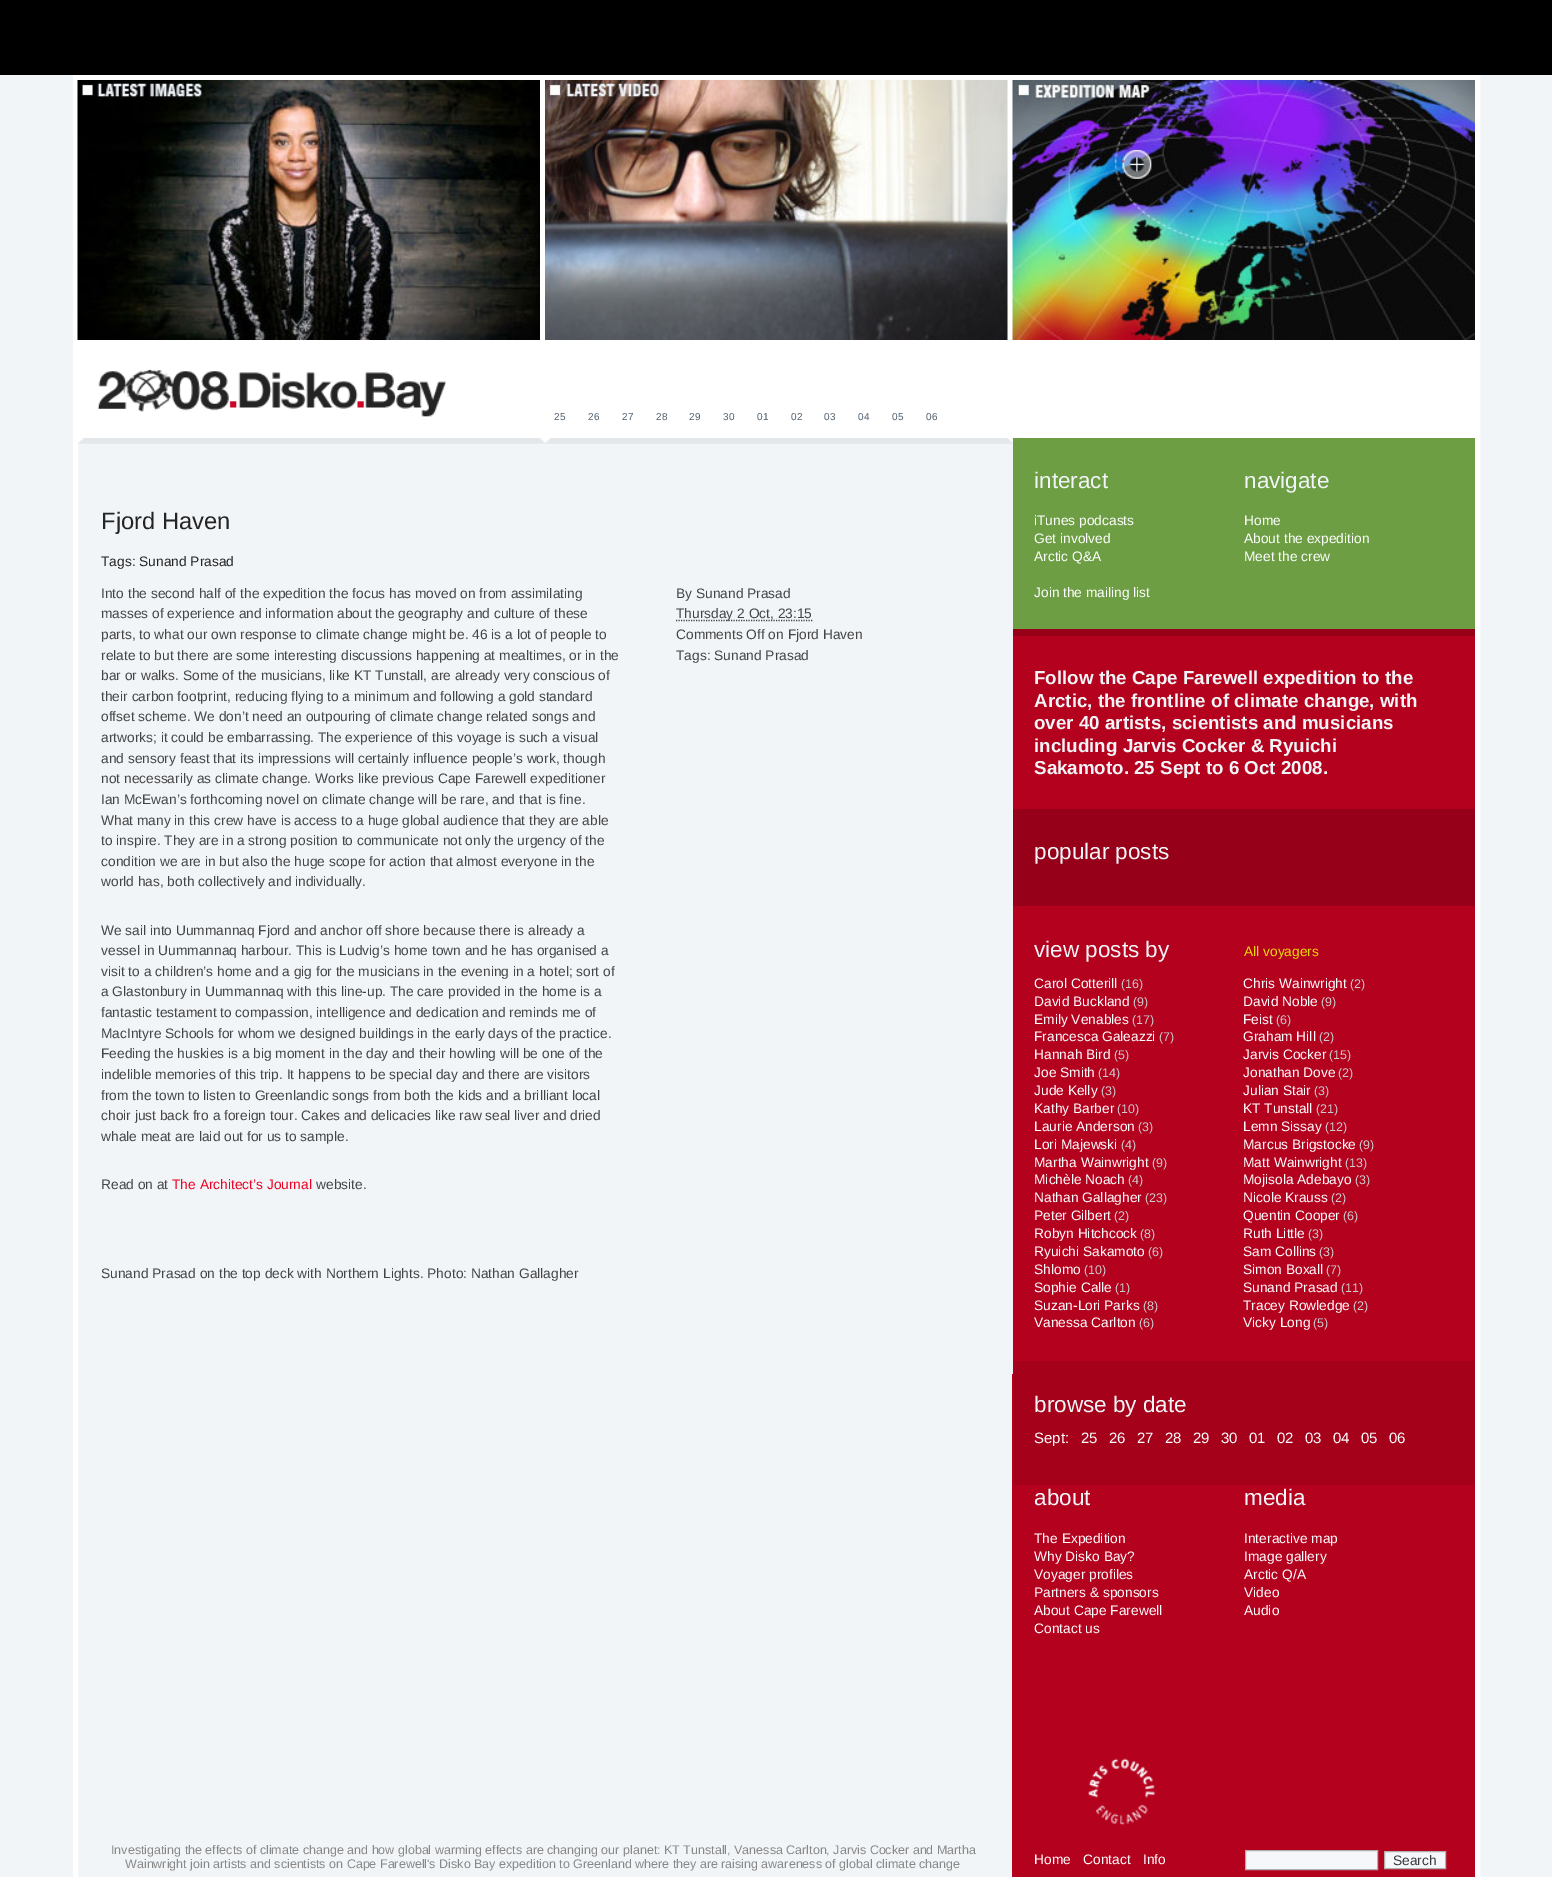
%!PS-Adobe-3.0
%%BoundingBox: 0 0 1552 1877
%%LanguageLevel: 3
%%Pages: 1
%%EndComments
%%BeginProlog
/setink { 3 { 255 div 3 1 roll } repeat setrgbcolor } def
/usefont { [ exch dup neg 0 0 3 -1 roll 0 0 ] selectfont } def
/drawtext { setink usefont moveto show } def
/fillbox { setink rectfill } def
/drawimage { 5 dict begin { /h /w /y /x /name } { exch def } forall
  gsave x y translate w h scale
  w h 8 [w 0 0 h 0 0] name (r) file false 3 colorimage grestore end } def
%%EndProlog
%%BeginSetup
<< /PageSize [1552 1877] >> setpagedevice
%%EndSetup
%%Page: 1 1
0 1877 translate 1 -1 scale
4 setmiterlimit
0 0 1552 1877 242 245 247 fillbox
0 0 1552 75 0 0 0 fillbox
1012 636 463 1241 180 1 30 fillbox
255 255 255 setink
5 setlinewidth
75.5 77.5 1402 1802 rectstroke
78 80 1397 269 255 255 255 fillbox
(assets/img5.rgb) 77 437 936 7 drawimage
78 349 1397 89 255 255 255 fillbox
(assets/img1.rgb) 97 369 350 48 drawimage
(assets/img2.rgb) 77 80 463 260 drawimage
(assets/img3.rgb) 545 80 463 260 drawimage
(assets/img4.rgb) 1012 80 463 260 drawimage
(25) 554 420 /LiberationSans-Regular 10 79 93 107 drawtext
(26) 588 420 /LiberationSans-Regular 10 79 93 107 drawtext
(27) 622 420 /LiberationSans-Regular 10 79 93 107 drawtext
(28) 656 420 /LiberationSans-Regular 10 79 93 107 drawtext
(29) 689 420 /LiberationSans-Regular 10 79 93 107 drawtext
(30) 723 420 /LiberationSans-Regular 10 79 93 107 drawtext
(01) 757 420 /LiberationSans-Regular 10 79 93 107 drawtext
(02) 791 420 /LiberationSans-Regular 10 79 93 107 drawtext
(03) 824 420 /LiberationSans-Regular 10 79 93 107 drawtext
(04) 858 420 /LiberationSans-Regular 10 79 93 107 drawtext
(05) 892 420 /LiberationSans-Regular 10 79 93 107 drawtext
(06) 926 420 /LiberationSans-Regular 10 79 93 107 drawtext
1012 636 1 738 242 245 247 fillbox
(Fjord Haven) 101 529 /LiberationSans-Regular 23.75 36 36 36 drawtext
(Tags: Sunand Prasad) 101 566 /LiberationSans-Regular 13.75 36 36 36 drawtext
(Into the second half of the expedition the focus has moved on from assimilating) 101 598 /LiberationSans-Regular 13.75 67 68 69 drawtext
(masses of experience and information about the geography and culture of these) 101 618 /LiberationSans-Regular 13.75 67 68 69 drawtext
(parts, to what our own response to climate change might be. 46 is a lot of people to) 101 639 /LiberationSans-Regular 13.75 67 68 69 drawtext
(relate to but there are some interesting discussions happening at mealtimes, or in the) 101 660 /LiberationSans-Regular 13.75 67 68 69 drawtext
(bar or walks. Some of the musicians, like KT Tunstall, are already very conscious of) 101 680 /LiberationSans-Regular 13.75 67 68 69 drawtext
(their carbon footprint, reducing flying to a minimum and following a gold standard) 101 701 /LiberationSans-Regular 13.75 67 68 69 drawtext
(offset scheme. We don’t need an outpouring of climate change related songs and) 101 721 /LiberationSans-Regular 13.75 67 68 69 drawtext
(artworks; it could be embarrassing. The experience of this voyage is such a visual) 101 742 /LiberationSans-Regular 13.75 67 68 69 drawtext
(and sensory feast that its impressions will certainly influence people’s work, though) 101 763 /LiberationSans-Regular 13.75 67 68 69 drawtext
(not necessarily as climate change. Works like previous Cape Farewell expeditioner) 101 783 /LiberationSans-Regular 13.75 67 68 69 drawtext
(Ian McEwan’s forthcoming novel on climate change will be rare, and that is fine.) 101 804 /LiberationSans-Regular 13.75 67 68 69 drawtext
(What many in this crew have is access to a huge global audience that they are able) 101 825 /LiberationSans-Regular 13.75 67 68 69 drawtext
(to inspire. They are in a strong position to communicate not only the urgency of the) 101 845 /LiberationSans-Regular 13.75 67 68 69 drawtext
(condition we are in but also the huge scope for action that almost everyone in the) 101 866 /LiberationSans-Regular 13.75 67 68 69 drawtext
(world has, both collectively and individually.) 101 886 /LiberationSans-Regular 13.75 67 68 69 drawtext
(We sail into Uummannaq Fjord and anchor off shore because there is already a) 101 935 /LiberationSans-Regular 13.75 67 68 69 drawtext
(vessel in Uummannaq harbour. This is Ludvig’s home town and he has organised a) 101 955 /LiberationSans-Regular 13.75 67 68 69 drawtext
(visit to a children’s home and a gig for the musicians in the evening in a hotel; sort of) 101 976 /LiberationSans-Regular 13.75 67 68 69 drawtext
(a Glastonbury in Uummannaq with this line-up. The care provided in the home is a) 101 996 /LiberationSans-Regular 13.75 67 68 69 drawtext
(fantastic testament to compassion, intelligence and dedication and reminds me of) 101 1017 /LiberationSans-Regular 13.75 67 68 69 drawtext
(MacIntyre Schools for whom we designed buildings in the early days of the practice.) 101 1038 /LiberationSans-Regular 13.75 67 68 69 drawtext
(Feeding the huskies is a big moment in the day and their howling will be one of the) 101 1058 /LiberationSans-Regular 13.75 67 68 69 drawtext
(indelible memories of this trip. It happens to be special day and there are visitors) 101 1079 /LiberationSans-Regular 13.75 67 68 69 drawtext
(from the town to listen to Greenlandic songs from both the kids and a brilliant local) 101 1100 /LiberationSans-Regular 13.75 67 68 69 drawtext
(choir just back fro a foreign tour. Cakes and delicacies like raw seal liver and dried) 101 1120 /LiberationSans-Regular 13.75 67 68 69 drawtext
(whale meat are laid out for us to sample.) 101 1141 /LiberationSans-Regular 13.75 67 68 69 drawtext
(Read on at) 101 1189 /LiberationSans-Regular 13.75 67 68 69 drawtext
(The Architect’s Journal) 172 1189 /LiberationSans-Regular 13.75 237 1 34 drawtext
(website.) 316 1189 /LiberationSans-Regular 13.75 67 68 69 drawtext
(Sunand Prasad on the top deck with Northern Lights. Photo: Nathan Gallagher) 101 1278 /LiberationSans-Regular 13.75 67 68 69 drawtext
(By Sunand Prasad) 676 598 /LiberationSans-Regular 13.75 67 68 69 drawtext
1.2 setlinewidth
[1.25 1.25] 0 setdash
676 620.5 moveto 812.5 620.5 lineto stroke
(Thursday 2 Oct, 23:15) 676 618 /LiberationSans-Regular 13.75 67 68 69 drawtext
(Comments Off on Fjord Haven) 676 639 /LiberationSans-Regular 13.75 67 68 69 drawtext
(Tags: Sunand Prasad) 676 660 /LiberationSans-Regular 13.75 67 68 69 drawtext
1013 438 462 191 109 158 68 fillbox
(interact) 1034 488 /LiberationSans-Regular 22.5 242 245 247 drawtext
(iTunes podcasts) 1034 525 /LiberationSans-Regular 13.75 255 255 255 drawtext
(Get involved) 1034 543 /LiberationSans-Regular 13.75 255 255 255 drawtext
(Arctic Q&A) 1034 561 /LiberationSans-Regular 13.75 255 255 255 drawtext
(navigate) 1244 488 /LiberationSans-Regular 22.5 242 245 247 drawtext
(Home) 1244 525 /LiberationSans-Regular 13.75 255 255 255 drawtext
(About the expedition) 1244 543 /LiberationSans-Regular 13.75 255 255 255 drawtext
(Meet the crew) 1244 561 /LiberationSans-Regular 13.75 255 255 255 drawtext
(Join the mailing list) 1034 597 /LiberationSans-Regular 13.75 255 255 255 drawtext
1013 629 462 7 150 1 25 fillbox
(Follow the Cape Farewell expedition to the) 1034 684 /LiberationSans-Bold 18.75 242 245 247 drawtext
(Arctic, the frontline of climate change, with) 1034 707 /LiberationSans-Bold 18.75 242 245 247 drawtext
(over 40 artists, scientists and musicians) 1034 729 /LiberationSans-Bold 18.75 242 245 247 drawtext
(including Jarvis Cocker & Ryuichi) 1034 752 /LiberationSans-Bold 18.75 242 245 247 drawtext
(Sakamoto. 25 Sept to 6 Oct 2008.) 1034 774 /LiberationSans-Bold 18.75 242 245 247 drawtext
1013 809 462 97 150 1 25 fillbox
(popular posts) 1034 859 /LiberationSans-Regular 22.5 242 245 247 drawtext
(view posts by) 1034 957 /LiberationSans-Regular 22.5 242 245 247 drawtext
(All voyagers) 1244 956 /LiberationSans-Regular 13.75 236 219 9 drawtext
(Carol Cotterill) 1034 988 /LiberationSans-Regular 13.75 255 255 255 drawtext
(\(16\)) 1121 988 /LiberationSans-Regular 12.5 204 204 204 drawtext
(Chris Wainwright) 1243 988 /LiberationSans-Regular 13.75 255 255 255 drawtext
(\(2\)) 1350 988 /LiberationSans-Regular 12.5 204 204 204 drawtext
(David Buckland) 1034 1006 /LiberationSans-Regular 13.75 255 255 255 drawtext
(\(9\)) 1133 1006 /LiberationSans-Regular 12.5 204 204 204 drawtext
(David Noble) 1243 1006 /LiberationSans-Regular 13.75 255 255 255 drawtext
(\(9\)) 1321 1006 /LiberationSans-Regular 12.5 204 204 204 drawtext
(Emily Venables) 1034 1024 /LiberationSans-Regular 13.75 255 255 255 drawtext
(\(17\)) 1132 1024 /LiberationSans-Regular 12.5 204 204 204 drawtext
(Feist) 1243 1024 /LiberationSans-Regular 13.75 255 255 255 drawtext
(\(6\)) 1276 1024 /LiberationSans-Regular 12.5 204 204 204 drawtext
(Francesca Galeazzi) 1034 1041 /LiberationSans-Regular 13.75 255 255 255 drawtext
(\(7\)) 1159 1041 /LiberationSans-Regular 12.5 204 204 204 drawtext
(Graham Hill) 1243 1041 /LiberationSans-Regular 13.75 255 255 255 drawtext
(\(2\)) 1319 1041 /LiberationSans-Regular 12.5 204 204 204 drawtext
(Hannah Bird) 1034 1059 /LiberationSans-Regular 13.75 255 255 255 drawtext
(\(5\)) 1114 1059 /LiberationSans-Regular 12.5 204 204 204 drawtext
(Jarvis Cocker) 1243 1059 /LiberationSans-Regular 13.75 255 255 255 drawtext
(\(15\)) 1329 1059 /LiberationSans-Regular 12.5 204 204 204 drawtext
(Joe Smith) 1034 1077 /LiberationSans-Regular 13.75 255 255 255 drawtext
(\(14\)) 1098 1077 /LiberationSans-Regular 12.5 204 204 204 drawtext
(Jonathan Dove) 1243 1077 /LiberationSans-Regular 13.75 255 255 255 drawtext
(\(2\)) 1338 1077 /LiberationSans-Regular 12.5 204 204 204 drawtext
(Jude Kelly) 1034 1095 /LiberationSans-Regular 13.75 255 255 255 drawtext
(\(3\)) 1101 1095 /LiberationSans-Regular 12.5 204 204 204 drawtext
(Julian Stair) 1243 1095 /LiberationSans-Regular 13.75 255 255 255 drawtext
(\(3\)) 1314 1095 /LiberationSans-Regular 12.5 204 204 204 drawtext
(Kathy Barber) 1034 1113 /LiberationSans-Regular 13.75 255 255 255 drawtext
(\(10\)) 1117 1113 /LiberationSans-Regular 12.5 204 204 204 drawtext
(KT Tunstall) 1243 1113 /LiberationSans-Regular 13.75 255 255 255 drawtext
(\(21\)) 1316 1113 /LiberationSans-Regular 12.5 204 204 204 drawtext
(Laurie Anderson) 1034 1131 /LiberationSans-Regular 13.75 255 255 255 drawtext
(\(3\)) 1138 1131 /LiberationSans-Regular 12.5 204 204 204 drawtext
(Lemn Sissay) 1243 1131 /LiberationSans-Regular 13.75 255 255 255 drawtext
(\(12\)) 1325 1131 /LiberationSans-Regular 12.5 204 204 204 drawtext
(Lori Majewski) 1034 1149 /LiberationSans-Regular 13.75 255 255 255 drawtext
(\(4\)) 1121 1149 /LiberationSans-Regular 12.5 204 204 204 drawtext
(Marcus Brigstocke) 1243 1149 /LiberationSans-Regular 13.75 255 255 255 drawtext
(\(9\)) 1359 1149 /LiberationSans-Regular 12.5 204 204 204 drawtext
(Martha Wainwright) 1034 1167 /LiberationSans-Regular 13.75 255 255 255 drawtext
(\(9\)) 1152 1167 /LiberationSans-Regular 12.5 204 204 204 drawtext
(Matt Wainwright) 1243 1167 /LiberationSans-Regular 13.75 255 255 255 drawtext
(\(13\)) 1345 1167 /LiberationSans-Regular 12.5 204 204 204 drawtext
(Michèle Noach) 1034 1184 /LiberationSans-Regular 13.75 255 255 255 drawtext
(\(4\)) 1128 1184 /LiberationSans-Regular 12.5 204 204 204 drawtext
(Mojisola Adebayo) 1243 1184 /LiberationSans-Regular 13.75 255 255 255 drawtext
(\(3\)) 1355 1184 /LiberationSans-Regular 12.5 204 204 204 drawtext
(Nathan Gallagher) 1034 1202 /LiberationSans-Regular 13.75 255 255 255 drawtext
(\(23\)) 1145 1202 /LiberationSans-Regular 12.5 204 204 204 drawtext
(Nicole Krauss) 1243 1202 /LiberationSans-Regular 13.75 255 255 255 drawtext
(\(2\)) 1331 1202 /LiberationSans-Regular 12.5 204 204 204 drawtext
(Peter Gilbert) 1034 1220 /LiberationSans-Regular 13.75 255 255 255 drawtext
(\(2\)) 1114 1220 /LiberationSans-Regular 12.5 204 204 204 drawtext
(Quentin Cooper) 1243 1220 /LiberationSans-Regular 13.75 255 255 255 drawtext
(\(6\)) 1343 1220 /LiberationSans-Regular 12.5 204 204 204 drawtext
(Robyn Hitchcock) 1034 1238 /LiberationSans-Regular 13.75 255 255 255 drawtext
(\(8\)) 1140 1238 /LiberationSans-Regular 12.5 204 204 204 drawtext
(Ruth Little) 1243 1238 /LiberationSans-Regular 13.75 255 255 255 drawtext
(\(3\)) 1308 1238 /LiberationSans-Regular 12.5 204 204 204 drawtext
(Ryuichi Sakamoto) 1034 1256 /LiberationSans-Regular 13.75 255 255 255 drawtext
(\(6\)) 1148 1256 /LiberationSans-Regular 12.5 204 204 204 drawtext
(Sam Collins) 1243 1256 /LiberationSans-Regular 13.75 255 255 255 drawtext
(\(3\)) 1319 1256 /LiberationSans-Regular 12.5 204 204 204 drawtext
(Shlomo) 1034 1274 /LiberationSans-Regular 13.75 255 255 255 drawtext
(\(10\)) 1084 1274 /LiberationSans-Regular 12.5 204 204 204 drawtext
(Simon Boxall) 1243 1274 /LiberationSans-Regular 13.75 255 255 255 drawtext
(\(7\)) 1326 1274 /LiberationSans-Regular 12.5 204 204 204 drawtext
(Sophie Calle) 1034 1292 /LiberationSans-Regular 13.75 255 255 255 drawtext
(\(1\)) 1115 1292 /LiberationSans-Regular 12.5 204 204 204 drawtext
(Sunand Prasad) 1243 1292 /LiberationSans-Regular 13.75 255 255 255 drawtext
(\(11\)) 1341 1292 /LiberationSans-Regular 12.5 204 204 204 drawtext
(Suzan-Lori Parks) 1034 1310 /LiberationSans-Regular 13.75 255 255 255 drawtext
(\(8\)) 1143 1310 /LiberationSans-Regular 12.5 204 204 204 drawtext
(Tracey Rowledge) 1243 1310 /LiberationSans-Regular 13.75 255 255 255 drawtext
(\(2\)) 1353 1310 /LiberationSans-Regular 12.5 204 204 204 drawtext
(Vanessa Carlton) 1034 1327 /LiberationSans-Regular 13.75 255 255 255 drawtext
(\(6\)) 1139 1327 /LiberationSans-Regular 12.5 204 204 204 drawtext
(Vicky Long) 1243 1327 /LiberationSans-Regular 13.75 255 255 255 drawtext
(\(5\)) 1313 1327 /LiberationSans-Regular 12.5 204 204 204 drawtext
1013 1361 462 124 165 1 27 fillbox
(browse by date) 1034 1412 /LiberationSans-Regular 22.5 242 245 247 drawtext
(Sept:) 1034 1443 /LiberationSans-Regular 15 255 255 255 drawtext
(25) 1081 1443 /LiberationSans-Regular 15 255 255 255 drawtext
(26) 1109 1443 /LiberationSans-Regular 15 255 255 255 drawtext
(27) 1137 1443 /LiberationSans-Regular 15 255 255 255 drawtext
(28) 1165 1443 /LiberationSans-Regular 15 255 255 255 drawtext
(29) 1193 1443 /LiberationSans-Regular 15 255 255 255 drawtext
(30) 1221 1443 /LiberationSans-Regular 15 255 255 255 drawtext
(01) 1249 1443 /LiberationSans-Regular 15 255 255 255 drawtext
(02) 1277 1443 /LiberationSans-Regular 15 255 255 255 drawtext
(03) 1305 1443 /LiberationSans-Regular 15 255 255 255 drawtext
(04) 1333 1443 /LiberationSans-Regular 15 255 255 255 drawtext
(05) 1361 1443 /LiberationSans-Regular 15 255 255 255 drawtext
(06) 1389 1443 /LiberationSans-Regular 15 255 255 255 drawtext
(about) 1034 1505 /LiberationSans-Regular 22.5 242 245 247 drawtext
(The Expedition) 1034 1543 /LiberationSans-Regular 13.75 255 255 255 drawtext
(Why Disko Bay?) 1034 1561 /LiberationSans-Regular 13.75 255 255 255 drawtext
(Voyager profiles) 1034 1579 /LiberationSans-Regular 13.75 255 255 255 drawtext
(Partners & sponsors) 1034 1597 /LiberationSans-Regular 13.75 255 255 255 drawtext
(About Cape Farewell) 1034 1615 /LiberationSans-Regular 13.75 255 255 255 drawtext
(Contact us) 1034 1633 /LiberationSans-Regular 13.75 255 255 255 drawtext
(media) 1244 1505 /LiberationSans-Regular 22.5 242 245 247 drawtext
(Interactive map) 1244 1543 /LiberationSans-Regular 13.75 255 255 255 drawtext
(Image gallery) 1244 1561 /LiberationSans-Regular 13.75 255 255 255 drawtext
(Arctic Q/A) 1244 1579 /LiberationSans-Regular 13.75 255 255 255 drawtext
(Video) 1244 1597 /LiberationSans-Regular 13.75 255 255 255 drawtext
(Audio) 1244 1615 /LiberationSans-Regular 13.75 255 255 255 drawtext
(assets/img6.rgb) 1088 1758 68 67 drawimage
(Home) 1034 1864 /LiberationSans-Regular 13.75 255 255 255 drawtext
(Contact) 1083 1864 /LiberationSans-Regular 13.75 255 255 255 drawtext
(Info) 1143 1864 /LiberationSans-Regular 13.75 255 255 255 drawtext
246 247 250 setink
1245.5 1850.5 moveto 1377.5 1850.5 lineto 1377.5 1869.5 lineto 1245.5 1869.5 lineto closepath gsave fill grestore
176 176 176 setink
1 setlinewidth
[] 0 setdash
stroke
246 247 250 setink
1384.5 1851.5 moveto 1445.5 1851.5 lineto 1445.5 1868.5 lineto 1384.5 1868.5 lineto closepath gsave fill grestore
176 176 176 setink
stroke
(Search) 1393 1865 /LiberationSans-Regular 13.75 53 56 59 drawtext
(Investigating the effects of climate change and how global warming effects are changing our planet: KT Tunstall, Vanessa Carlton, Jarvis Cocker and Martha) 111 1854 /LiberationSans-Regular 12.5 136 136 136 drawtext
(Wainwright join artists and scientists on Cape Farewell's Disko Bay expedition to Greenland where they are raising awareness of global climate change) 125 1868 /LiberationSans-Regular 12.5 136 136 136 drawtext
showpage
%%EOF
